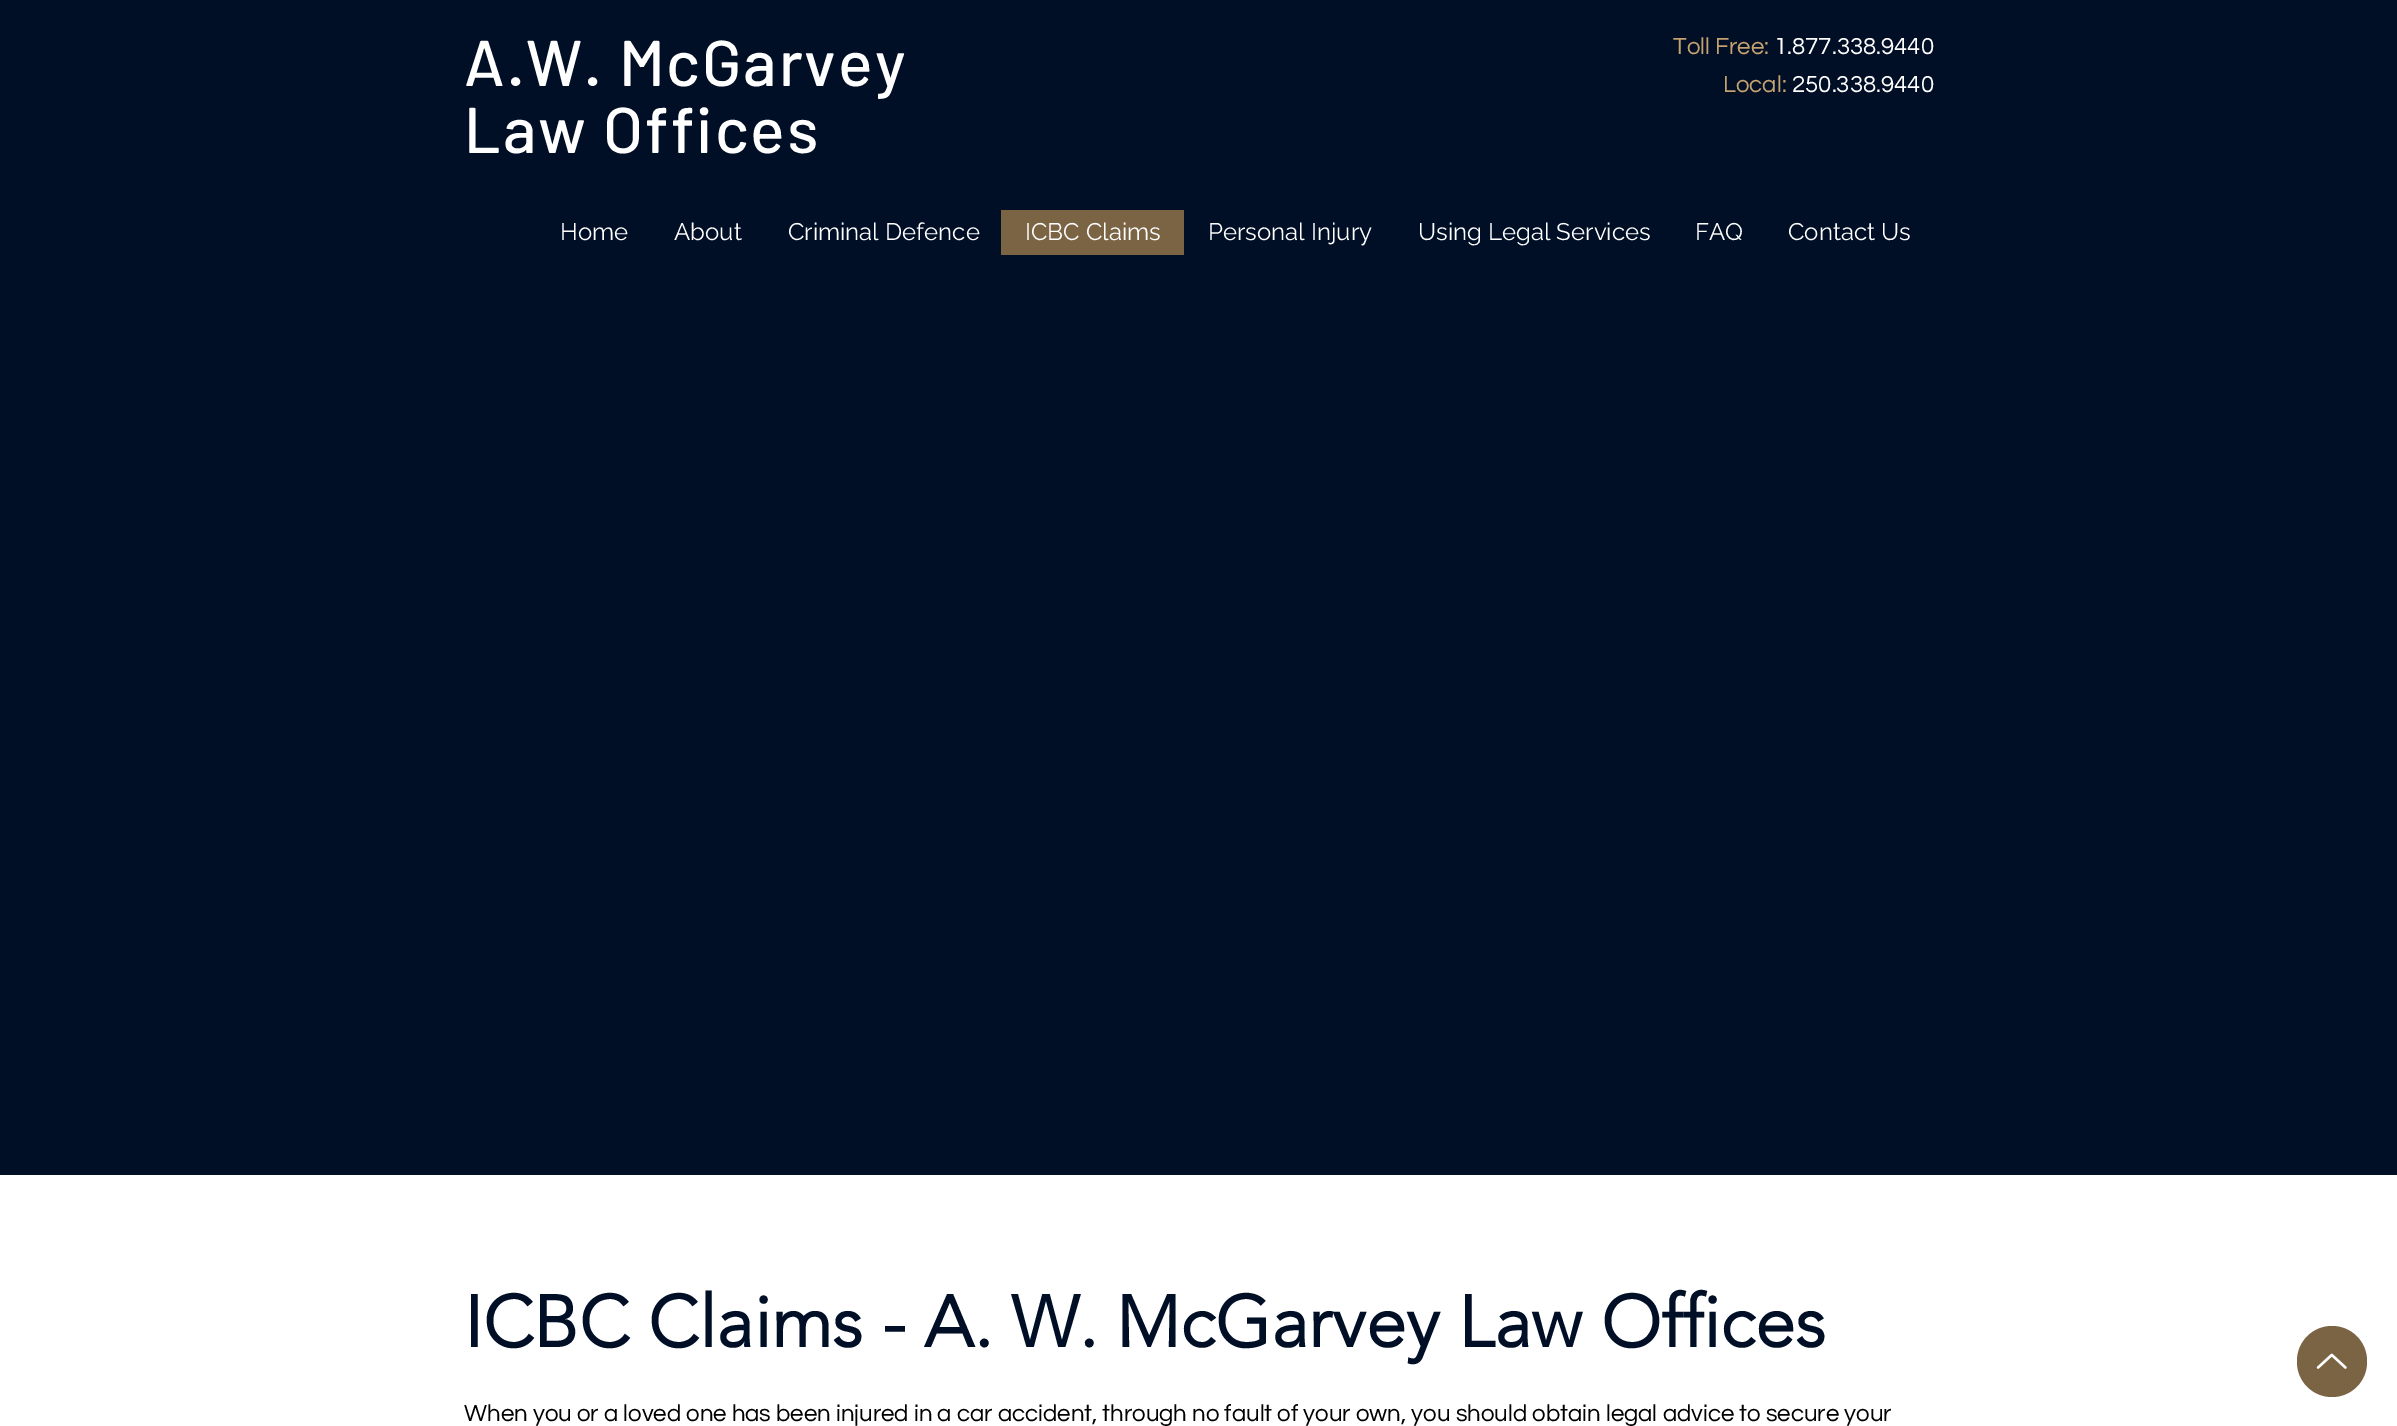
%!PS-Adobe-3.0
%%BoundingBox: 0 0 2397 1426
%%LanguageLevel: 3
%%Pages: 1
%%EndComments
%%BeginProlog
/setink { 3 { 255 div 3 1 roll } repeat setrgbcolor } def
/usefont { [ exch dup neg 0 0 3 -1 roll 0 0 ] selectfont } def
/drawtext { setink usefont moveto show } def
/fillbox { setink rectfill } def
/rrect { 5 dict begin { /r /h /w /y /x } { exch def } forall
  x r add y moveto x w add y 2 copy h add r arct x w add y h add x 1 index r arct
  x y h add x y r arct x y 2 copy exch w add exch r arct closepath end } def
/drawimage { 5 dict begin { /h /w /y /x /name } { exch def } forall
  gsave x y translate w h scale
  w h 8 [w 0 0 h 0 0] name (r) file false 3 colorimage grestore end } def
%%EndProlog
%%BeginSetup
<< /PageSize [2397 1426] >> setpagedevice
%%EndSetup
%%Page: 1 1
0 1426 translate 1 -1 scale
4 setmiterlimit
0 0 2397 1426 255 255 255 fillbox
0 0 2397 1175 0 15 38 fillbox
/Barlow-Medium 64.5 usefont
255 255 255 setink
464 86 moveto 2 0 (A.W. McGarvey) ashow
464 153 moveto 2 0 (Law Offices) ashow
(Toll Free:) 1673 54 /Questrial-Regular 24 197 162 111 drawtext
(1.877.338.9440) 1774 54 /Questrial-Regular 24 255 255 255 drawtext
(Local:) 1723 92 /Questrial-Regular 24 197 162 111 drawtext
(250.338.9440) 1792 92 /Questrial-Regular 24 255 255 255 drawtext
(Home) 560 240 /Raleway-Regular 24 255 255 255 drawtext
(About) 674 240 /Raleway-Regular 24 255 255 255 drawtext
(Criminal Defence) 788 240 /Raleway-Regular 24 255 255 255 drawtext
1001 210 183 45 122 100 68 fillbox
(ICBC Claims) 1025 240 /Raleway-Regular 24 255 255 255 drawtext
(Personal Injury) 1208 240 /Raleway-Regular 24 255 255 255 drawtext
(Using Legal Services) 1418 240 /Raleway-Regular 24 255 255 255 drawtext
(FAQ) 1695 240 /Raleway-Regular 24 255 255 255 drawtext
(Contact Us) 1788 240 /Raleway-Regular 24 255 255 255 drawtext
(ICBC Claims - A. W. McGarvey Law Offices) 464 1347 /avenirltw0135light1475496-Bold 72 0 15 38 drawtext
(When you or a loved one has been injured in a car accident, through no fault of your own, you should obtain legal advice to secure your) 464 1421 /Questrial-Regular 24 0 0 0 drawtext
122 100 68 setink
2297 1326 70 71 35 rrect fill
(assets/img1.rgb) 2316 1353 31 16 drawimage
showpage
%%EOF
